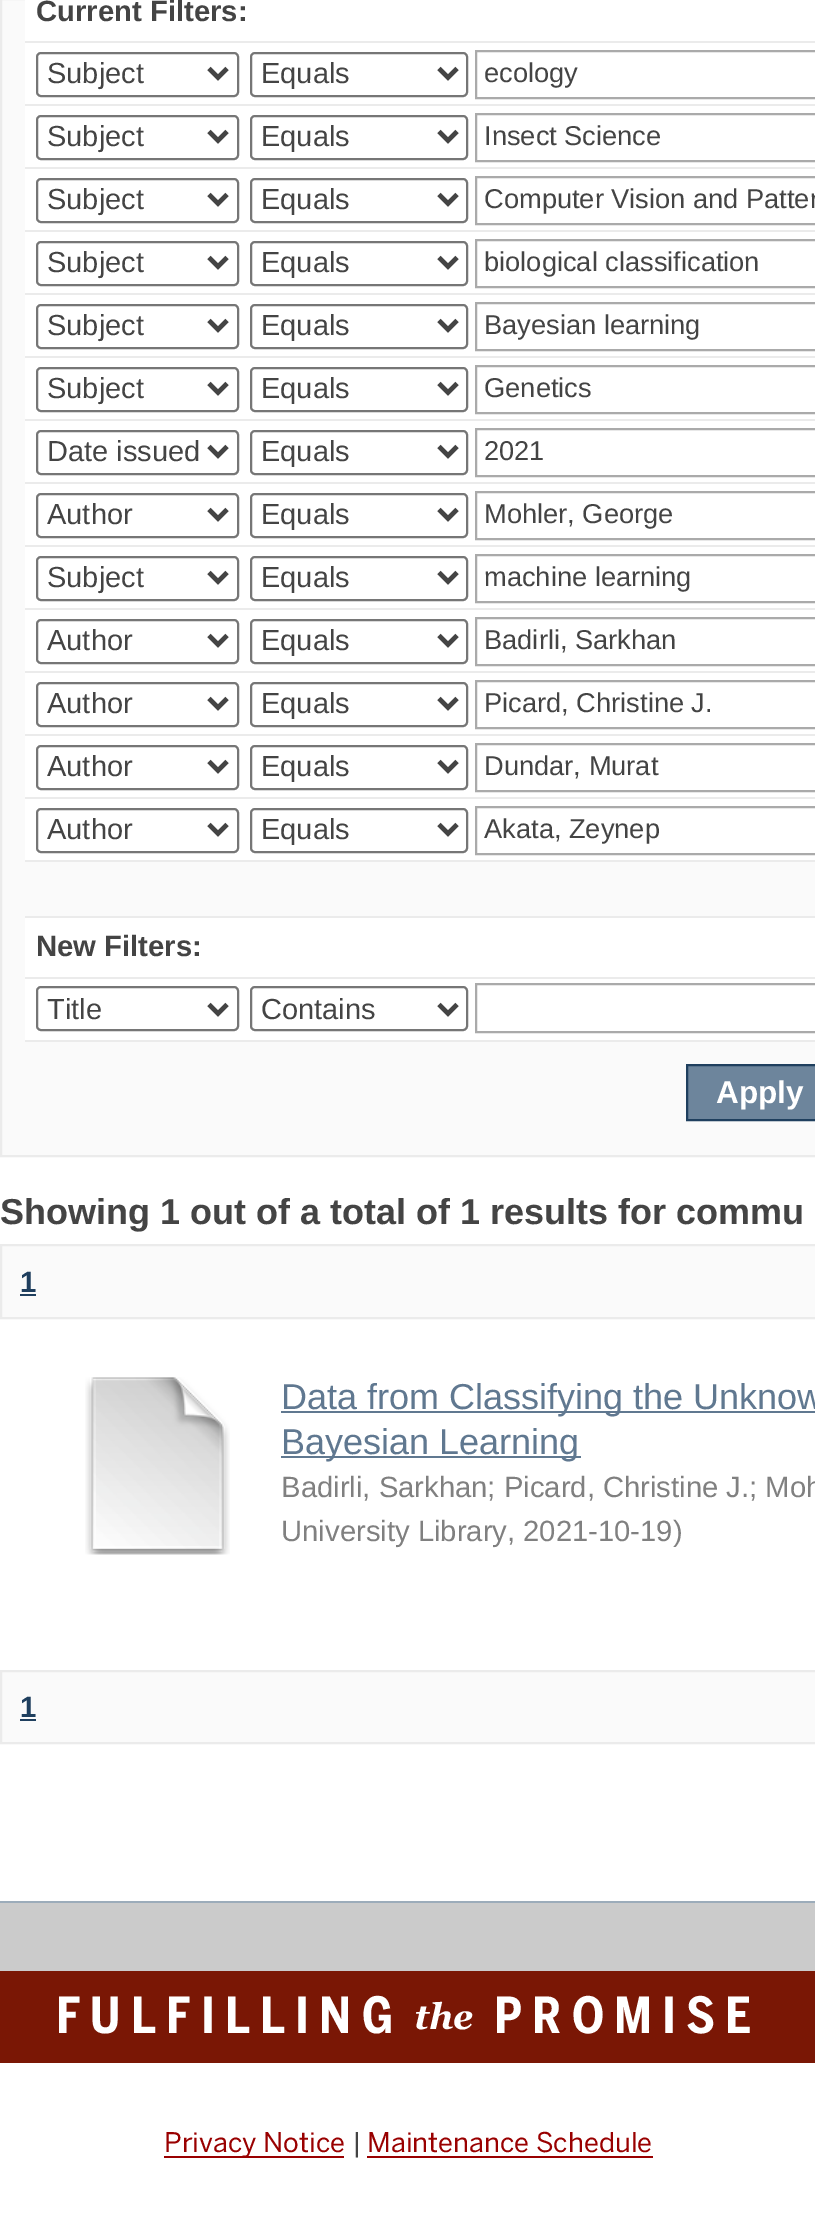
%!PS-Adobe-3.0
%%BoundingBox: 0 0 815 2222
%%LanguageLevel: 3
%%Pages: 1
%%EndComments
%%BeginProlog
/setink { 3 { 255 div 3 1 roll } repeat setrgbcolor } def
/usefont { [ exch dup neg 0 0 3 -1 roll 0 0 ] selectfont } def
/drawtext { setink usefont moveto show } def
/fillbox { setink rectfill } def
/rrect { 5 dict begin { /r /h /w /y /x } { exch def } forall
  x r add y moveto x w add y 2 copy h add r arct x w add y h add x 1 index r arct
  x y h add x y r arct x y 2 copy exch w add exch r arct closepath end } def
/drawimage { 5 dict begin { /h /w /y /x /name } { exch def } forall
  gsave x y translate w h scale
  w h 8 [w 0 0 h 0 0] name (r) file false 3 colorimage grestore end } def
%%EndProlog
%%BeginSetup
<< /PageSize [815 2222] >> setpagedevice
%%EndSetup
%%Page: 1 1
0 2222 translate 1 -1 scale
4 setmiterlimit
0 0 815 2222 255 255 255 fillbox
250 250 250 setink
1 -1 moveto 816 -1 lineto 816 1156 lineto 1 1156 lineto closepath gsave fill grestore
235 235 235 setink
2 setlinewidth
stroke
25 0 790 1040 255 255 255 fillbox
(Current Filters:) 36 21 /LiberationSans-Bold 29.25 68 68 68 drawtext
25 41 790 2 235 235 235 fillbox
118 118 118 setink
37 53 201 43 4 rrect stroke
68 68 68 setink
4.5 setlinewidth
209 68.5 moveto 218 77.5 lineto 227 68.5 lineto stroke
(Subject) 47 83 /LiberationSans-Regular 29 68 68 68 drawtext
118 118 118 setink
2 setlinewidth
251 53 216 43 4 rrect stroke
68 68 68 setink
4.5 setlinewidth
439 68.5 moveto 448 77.5 lineto 457 68.5 lineto stroke
(Equals) 261 83 /LiberationSans-Regular 29 68 68 68 drawtext
170 170 170 setink
2 setlinewidth
476 51 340 47 rectstroke
(ecology) 484 82 /LiberationSans-Regular 27.25 68 68 68 drawtext
25 104 790 2 235 235 235 fillbox
118 118 118 setink
37 116 201 43 4 rrect stroke
68 68 68 setink
4.5 setlinewidth
209 131.5 moveto 218 140.5 lineto 227 131.5 lineto stroke
(Subject) 47 146 /LiberationSans-Regular 29 68 68 68 drawtext
118 118 118 setink
2 setlinewidth
251 116 216 43 4 rrect stroke
68 68 68 setink
4.5 setlinewidth
439 131.5 moveto 448 140.5 lineto 457 131.5 lineto stroke
(Equals) 261 146 /LiberationSans-Regular 29 68 68 68 drawtext
170 170 170 setink
2 setlinewidth
476 114 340 47 rectstroke
(Insect Science) 484 145 /LiberationSans-Regular 27.25 68 68 68 drawtext
25 167 790 2 235 235 235 fillbox
118 118 118 setink
37 179 201 43 4 rrect stroke
68 68 68 setink
4.5 setlinewidth
209 194.5 moveto 218 203.5 lineto 227 194.5 lineto stroke
(Subject) 47 209 /LiberationSans-Regular 29 68 68 68 drawtext
118 118 118 setink
2 setlinewidth
251 179 216 43 4 rrect stroke
68 68 68 setink
4.5 setlinewidth
439 194.5 moveto 448 203.5 lineto 457 194.5 lineto stroke
(Equals) 261 209 /LiberationSans-Regular 29 68 68 68 drawtext
170 170 170 setink
2 setlinewidth
476 177 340 47 rectstroke
(Computer Vision and Patter) 484 208 /LiberationSans-Regular 27.25 68 68 68 drawtext
25 230 790 2 235 235 235 fillbox
118 118 118 setink
37 242 201 43 4 rrect stroke
68 68 68 setink
4.5 setlinewidth
209 257.5 moveto 218 266.5 lineto 227 257.5 lineto stroke
(Subject) 47 272 /LiberationSans-Regular 29 68 68 68 drawtext
118 118 118 setink
2 setlinewidth
251 242 216 43 4 rrect stroke
68 68 68 setink
4.5 setlinewidth
439 257.5 moveto 448 266.5 lineto 457 257.5 lineto stroke
(Equals) 261 272 /LiberationSans-Regular 29 68 68 68 drawtext
170 170 170 setink
2 setlinewidth
476 240 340 47 rectstroke
(biological classification) 484 271 /LiberationSans-Regular 27.25 68 68 68 drawtext
25 293 790 2 235 235 235 fillbox
118 118 118 setink
37 305 201 43 4 rrect stroke
68 68 68 setink
4.5 setlinewidth
209 320.5 moveto 218 329.5 lineto 227 320.5 lineto stroke
(Subject) 47 335 /LiberationSans-Regular 29 68 68 68 drawtext
118 118 118 setink
2 setlinewidth
251 305 216 43 4 rrect stroke
68 68 68 setink
4.5 setlinewidth
439 320.5 moveto 448 329.5 lineto 457 320.5 lineto stroke
(Equals) 261 335 /LiberationSans-Regular 29 68 68 68 drawtext
170 170 170 setink
2 setlinewidth
476 303 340 47 rectstroke
(Bayesian learning) 484 334 /LiberationSans-Regular 27.25 68 68 68 drawtext
25 356 790 2 235 235 235 fillbox
118 118 118 setink
37 368 201 43 4 rrect stroke
68 68 68 setink
4.5 setlinewidth
209 383.5 moveto 218 392.5 lineto 227 383.5 lineto stroke
(Subject) 47 398 /LiberationSans-Regular 29 68 68 68 drawtext
118 118 118 setink
2 setlinewidth
251 368 216 43 4 rrect stroke
68 68 68 setink
4.5 setlinewidth
439 383.5 moveto 448 392.5 lineto 457 383.5 lineto stroke
(Equals) 261 398 /LiberationSans-Regular 29 68 68 68 drawtext
170 170 170 setink
2 setlinewidth
476 366 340 47 rectstroke
(Genetics) 484 397 /LiberationSans-Regular 27.25 68 68 68 drawtext
25 419 790 2 235 235 235 fillbox
118 118 118 setink
37 431 201 43 4 rrect stroke
68 68 68 setink
4.5 setlinewidth
209 446.5 moveto 218 455.5 lineto 227 446.5 lineto stroke
(Date issued) 47 461 /LiberationSans-Regular 29 68 68 68 drawtext
118 118 118 setink
2 setlinewidth
251 431 216 43 4 rrect stroke
68 68 68 setink
4.5 setlinewidth
439 446.5 moveto 448 455.5 lineto 457 446.5 lineto stroke
(Equals) 261 461 /LiberationSans-Regular 29 68 68 68 drawtext
170 170 170 setink
2 setlinewidth
476 429 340 47 rectstroke
(2021) 484 460 /LiberationSans-Regular 27.25 68 68 68 drawtext
25 482 790 2 235 235 235 fillbox
118 118 118 setink
37 494 201 43 4 rrect stroke
68 68 68 setink
4.5 setlinewidth
209 509.5 moveto 218 518.5 lineto 227 509.5 lineto stroke
(Author) 47 524 /LiberationSans-Regular 29 68 68 68 drawtext
118 118 118 setink
2 setlinewidth
251 494 216 43 4 rrect stroke
68 68 68 setink
4.5 setlinewidth
439 509.5 moveto 448 518.5 lineto 457 509.5 lineto stroke
(Equals) 261 524 /LiberationSans-Regular 29 68 68 68 drawtext
170 170 170 setink
2 setlinewidth
476 492 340 47 rectstroke
(Mohler, George) 484 523 /LiberationSans-Regular 27.25 68 68 68 drawtext
25 545 790 2 235 235 235 fillbox
118 118 118 setink
37 557 201 43 4 rrect stroke
68 68 68 setink
4.5 setlinewidth
209 572.5 moveto 218 581.5 lineto 227 572.5 lineto stroke
(Subject) 47 587 /LiberationSans-Regular 29 68 68 68 drawtext
118 118 118 setink
2 setlinewidth
251 557 216 43 4 rrect stroke
68 68 68 setink
4.5 setlinewidth
439 572.5 moveto 448 581.5 lineto 457 572.5 lineto stroke
(Equals) 261 587 /LiberationSans-Regular 29 68 68 68 drawtext
170 170 170 setink
2 setlinewidth
476 555 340 47 rectstroke
(machine learning) 484 586 /LiberationSans-Regular 27.25 68 68 68 drawtext
25 608 790 2 235 235 235 fillbox
118 118 118 setink
37 620 201 43 4 rrect stroke
68 68 68 setink
4.5 setlinewidth
209 635.5 moveto 218 644.5 lineto 227 635.5 lineto stroke
(Author) 47 650 /LiberationSans-Regular 29 68 68 68 drawtext
118 118 118 setink
2 setlinewidth
251 620 216 43 4 rrect stroke
68 68 68 setink
4.5 setlinewidth
439 635.5 moveto 448 644.5 lineto 457 635.5 lineto stroke
(Equals) 261 650 /LiberationSans-Regular 29 68 68 68 drawtext
170 170 170 setink
2 setlinewidth
476 618 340 47 rectstroke
(Badirli, Sarkhan) 484 649 /LiberationSans-Regular 27.25 68 68 68 drawtext
25 671 790 2 235 235 235 fillbox
118 118 118 setink
37 683 201 43 4 rrect stroke
68 68 68 setink
4.5 setlinewidth
209 698.5 moveto 218 707.5 lineto 227 698.5 lineto stroke
(Author) 47 713 /LiberationSans-Regular 29 68 68 68 drawtext
118 118 118 setink
2 setlinewidth
251 683 216 43 4 rrect stroke
68 68 68 setink
4.5 setlinewidth
439 698.5 moveto 448 707.5 lineto 457 698.5 lineto stroke
(Equals) 261 713 /LiberationSans-Regular 29 68 68 68 drawtext
170 170 170 setink
2 setlinewidth
476 681 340 47 rectstroke
(Picard, Christine J.) 484 712 /LiberationSans-Regular 27.25 68 68 68 drawtext
25 734 790 2 235 235 235 fillbox
118 118 118 setink
37 746 201 43 4 rrect stroke
68 68 68 setink
4.5 setlinewidth
209 761.5 moveto 218 770.5 lineto 227 761.5 lineto stroke
(Author) 47 776 /LiberationSans-Regular 29 68 68 68 drawtext
118 118 118 setink
2 setlinewidth
251 746 216 43 4 rrect stroke
68 68 68 setink
4.5 setlinewidth
439 761.5 moveto 448 770.5 lineto 457 761.5 lineto stroke
(Equals) 261 776 /LiberationSans-Regular 29 68 68 68 drawtext
170 170 170 setink
2 setlinewidth
476 744 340 47 rectstroke
(Dundar, Murat) 484 775 /LiberationSans-Regular 27.25 68 68 68 drawtext
25 797 790 2 235 235 235 fillbox
118 118 118 setink
37 809 201 43 4 rrect stroke
68 68 68 setink
4.5 setlinewidth
209 824.5 moveto 218 833.5 lineto 227 824.5 lineto stroke
(Author) 47 839 /LiberationSans-Regular 29 68 68 68 drawtext
118 118 118 setink
2 setlinewidth
251 809 216 43 4 rrect stroke
68 68 68 setink
4.5 setlinewidth
439 824.5 moveto 448 833.5 lineto 457 824.5 lineto stroke
(Equals) 261 839 /LiberationSans-Regular 29 68 68 68 drawtext
170 170 170 setink
2 setlinewidth
476 807 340 47 rectstroke
(Akata, Zeynep) 484 838 /LiberationSans-Regular 27.25 68 68 68 drawtext
25 862 790 54 250 250 250 fillbox
25 860 790 2 235 235 235 fillbox
25 916 790 2 235 235 235 fillbox
(New Filters:) 36 956 /LiberationSans-Bold 29.25 68 68 68 drawtext
25 977 790 2 235 235 235 fillbox
118 118 118 setink
37 987 201 43 4 rrect stroke
68 68 68 setink
4.5 setlinewidth
209 1004.5 moveto 218 1013.5 lineto 227 1004.5 lineto stroke
(Title) 47 1019 /LiberationSans-Regular 29 68 68 68 drawtext
118 118 118 setink
2 setlinewidth
251 987 216 43 4 rrect stroke
68 68 68 setink
4.5 setlinewidth
439 1004.5 moveto 448 1013.5 lineto 457 1004.5 lineto stroke
(Contains) 261 1019 /LiberationSans-Regular 29 68 68 68 drawtext
170 170 170 setink
2 setlinewidth
476 984 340 48 rectstroke
25 1040 790 2 235 235 235 fillbox
109 133 156 setink
687 1065 moveto 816 1065 lineto 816 1120 lineto 687 1120 lineto closepath gsave fill grestore
31 63 94 setink
stroke
(Apply) 716 1103 /LiberationSans-Bold 31.5 255 255 255 drawtext
(Showing 1 out of a total of 1 results for commu) 0 1224 /LiberationSans-Bold 36 68 68 68 drawtext
250 250 250 setink
1 1245 moveto 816 1245 lineto 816 1318 lineto 1 1318 lineto closepath gsave fill grestore
235 235 235 setink
stroke
(1) 20 1292 /LiberationSans-Bold 29.25 31 63 94 drawtext
20 1294 16 2 31 63 94 fillbox
(assets/img1.rgb) 85 1377 145 178 drawimage
281 1411 534 2 96 120 144 fillbox
(Data from Classifying the Unknow) 281 1409 /LiberationSans-Regular 36 96 120 144 drawtext
281 1456 300 2 96 120 144 fillbox
(Bayesian Learning) 281 1454 /LiberationSans-Regular 36 96 120 144 drawtext
(Badirli, Sarkhan; Picard, Christine J.; Moh) 281 1497 /LiberationSans-Regular 29.25 128 128 128 drawtext
(University Library, 2021-10-19\)) 281 1541 /LiberationSans-Regular 29.25 128 128 128 drawtext
250 250 250 setink
1 1671 moveto 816 1671 lineto 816 1743 lineto 1 1743 lineto closepath gsave fill grestore
235 235 235 setink
stroke
(1) 20 1717 /LiberationSans-Bold 29.25 31 63 94 drawtext
20 1719 16 2 31 63 94 fillbox
0 1903 815 68 203 203 203 fillbox
0 1901 815 2 156 172 186 fillbox
0 1971 815 92 122 23 5 fillbox
/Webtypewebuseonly-Bold 49.5 usefont
255 255 255 setink
56 2033 moveto 10 0 (FULFILLING) ashow
(the) 414 2029 /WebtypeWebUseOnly-BoldItalic 36 255 255 255 drawtext
/Webtypewebuseonly-Bold 49.5 usefont
494 2033 moveto 10 0 (PROMISE) ashow
164 2156 180 2 153 0 0 fillbox
(Privacy Notice) 164 2152 /Webtypewebuseonly-Regular 27 153 0 0 drawtext
(|) 352 2152 /Webtypewebuseonly-Regular 27 68 68 68 drawtext
(Maintenance Schedule) 367 2152 /Webtypewebuseonly-Regular 27 153 0 0 drawtext
367 2156 286 2 153 0 0 fillbox
showpage
%%EOF
